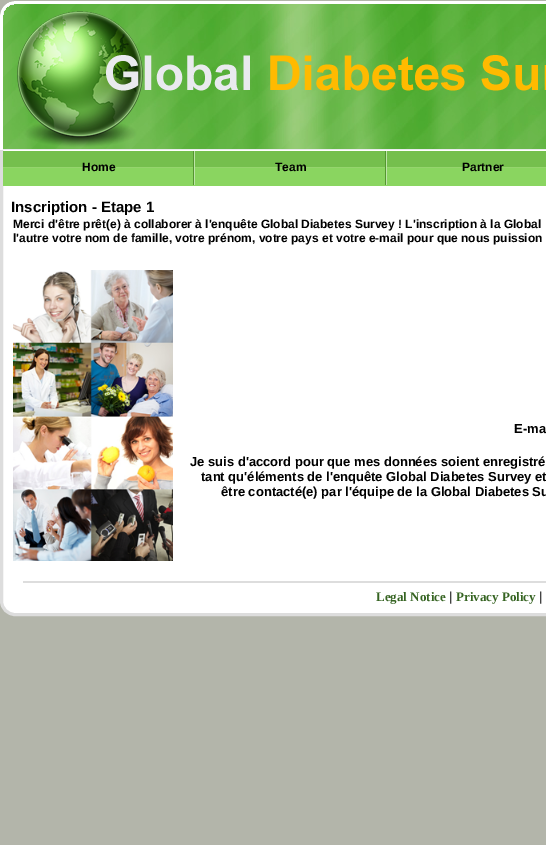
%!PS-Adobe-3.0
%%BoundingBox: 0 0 546 845
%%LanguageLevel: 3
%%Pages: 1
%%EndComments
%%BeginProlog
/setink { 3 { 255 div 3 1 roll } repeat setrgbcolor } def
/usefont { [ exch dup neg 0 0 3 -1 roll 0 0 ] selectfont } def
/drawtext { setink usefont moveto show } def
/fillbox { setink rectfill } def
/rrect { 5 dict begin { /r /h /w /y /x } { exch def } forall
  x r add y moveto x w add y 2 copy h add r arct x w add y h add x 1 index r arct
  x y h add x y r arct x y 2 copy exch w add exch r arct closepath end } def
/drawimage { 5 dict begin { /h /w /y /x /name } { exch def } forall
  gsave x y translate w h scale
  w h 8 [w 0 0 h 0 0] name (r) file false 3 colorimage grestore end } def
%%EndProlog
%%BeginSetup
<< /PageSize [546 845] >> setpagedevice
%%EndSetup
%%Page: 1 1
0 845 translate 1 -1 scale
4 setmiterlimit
0 0 546 845 179 181 170 fillbox
255 255 255 setink
1.5 1.5 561 613 13.5 rrect gsave fill grestore
221 221 221 setink
3 setlinewidth
stroke
(assets/img1.rgb) 0 0 546 150 drawimage
(assets/img2.rgb) 3 151 543 35 drawimage
(assets/img3.rgb) 193 151 2 34 drawimage
(Home) 82 171 /LiberationSans-Bold 12 0 0 0 drawtext
(assets/img3.rgb) 385 151 2 34 drawimage
(Team) 275 171 /LiberationSans-Bold 12 0 0 0 drawtext
(Partner) 462 171 /LiberationSans-Bold 12 0 0 0 drawtext
(Inscription - Etape 1) 11 212 /LiberationSans-Bold 15 0 0 0 drawtext
(Merci d'être prêt\(e\) à collaborer à l'enquête Global Diabetes Survey ! L'inscription à la Global) 13 228 /LiberationSans-Bold 12 0 0 0 drawtext
(l'autre votre nom de famille, votre prénom, votre pays et votre e-mail pour que nous puission) 13 242 /LiberationSans-Bold 12 0 0 0 drawtext
(assets/img4.rgb) 13 270 160 291 drawimage
(E-ma) 514 433 /LiberationSans-Bold 13 0 0 0 drawtext
(Je suis d'accord pour que mes données soient enregistré) 190 466 /LiberationSans-Bold 13 0 0 0 drawtext
(tant qu'éléments de l'enquête Global Diabetes Survey et) 201 481 /LiberationSans-Bold 13 0 0 0 drawtext
(être contacté\(e\) par l'équipe de la Global Diabetes Su) 221 496 /LiberationSans-Bold 13 0 0 0 drawtext
23 581 523 2 221 221 221 fillbox
(Legal Notice) 376 601 /LiberationSerif-Bold 13 54 100 34 drawtext
(|) 449 601 /LiberationSans-Regular 13 0 0 0 drawtext
(Privacy Policy) 456 601 /LiberationSerif-Bold 13 54 100 34 drawtext
(|) 539 601 /LiberationSans-Regular 13 0 0 0 drawtext
showpage
%%EOF
